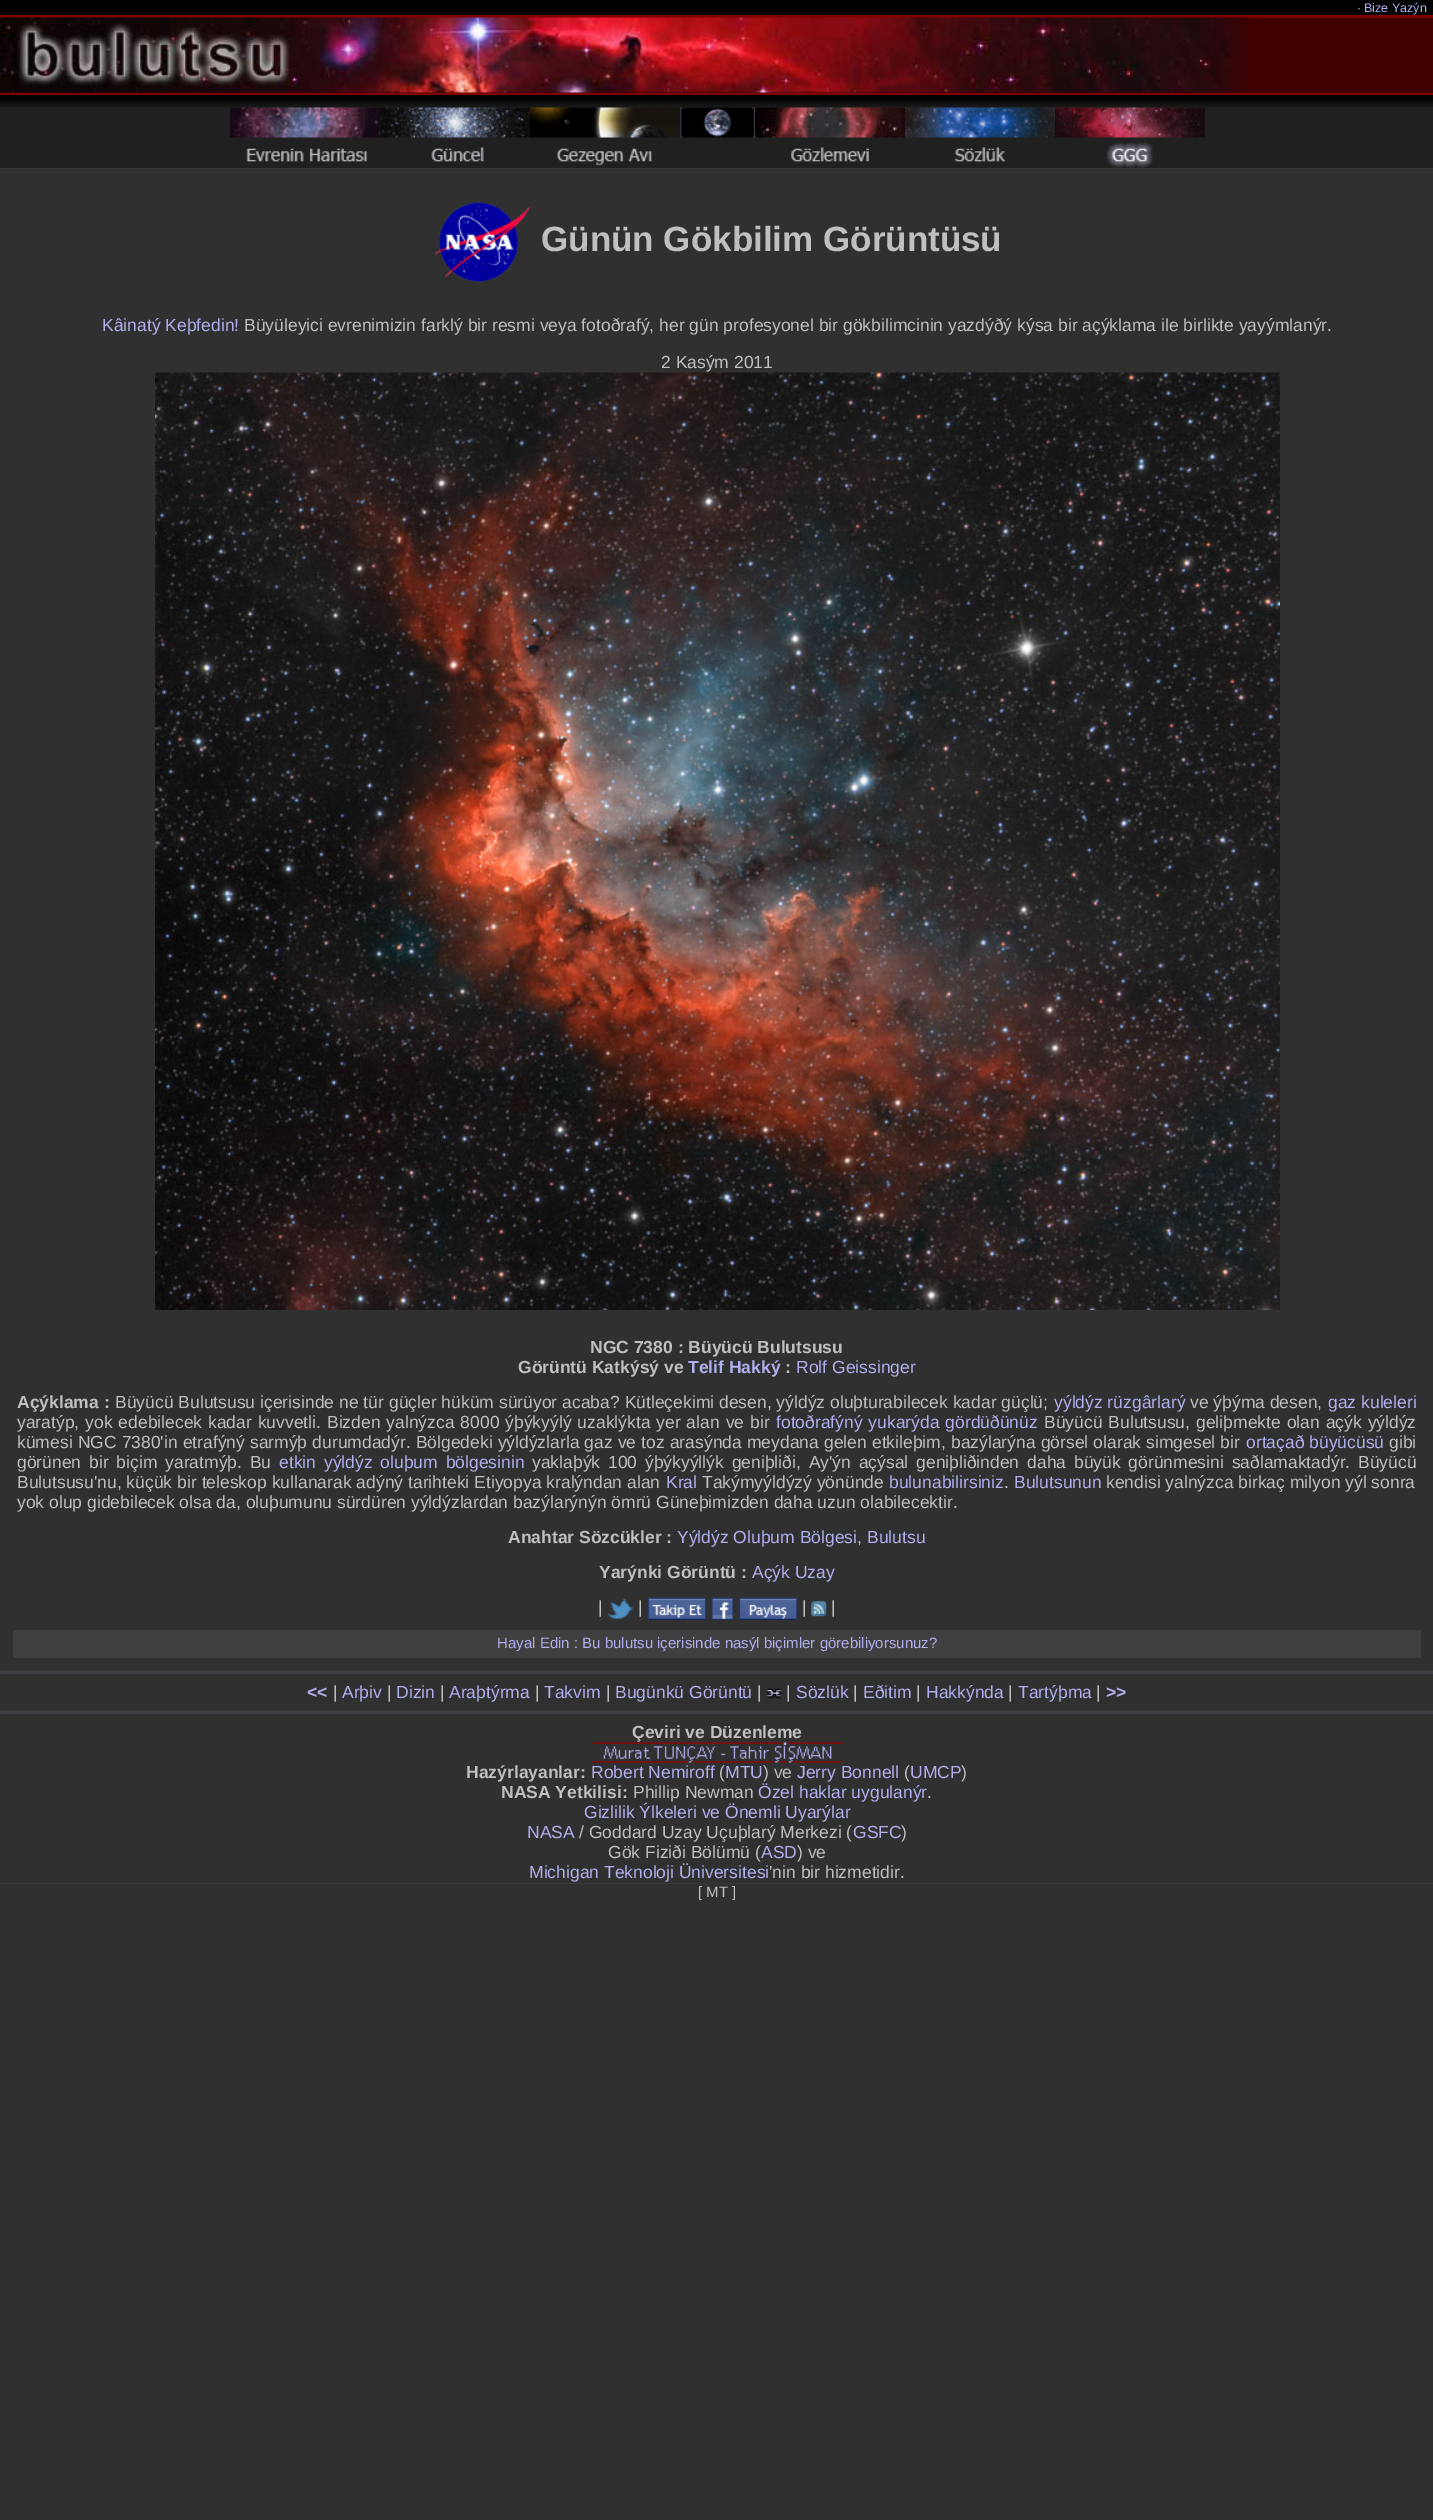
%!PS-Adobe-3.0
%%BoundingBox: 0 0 1433 2520
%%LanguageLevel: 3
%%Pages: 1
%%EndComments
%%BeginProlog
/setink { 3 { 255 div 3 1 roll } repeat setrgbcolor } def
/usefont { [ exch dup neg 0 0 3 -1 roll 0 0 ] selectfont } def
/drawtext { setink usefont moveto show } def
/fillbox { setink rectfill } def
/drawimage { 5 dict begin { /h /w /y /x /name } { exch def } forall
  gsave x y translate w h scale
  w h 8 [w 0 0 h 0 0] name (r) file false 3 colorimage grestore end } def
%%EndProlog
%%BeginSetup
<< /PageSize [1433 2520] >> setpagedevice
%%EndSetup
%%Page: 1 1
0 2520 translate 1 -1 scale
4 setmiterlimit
0 0 1433 2520 48 48 48 fillbox
0 0 1433 15 0 0 0 fillbox
(·) 1357 12 /LiberationSans-Regular 12.5 192 192 192 drawtext
(Bize Yazýn) 1364 12 /LiberationSans-Regular 12.5 176 176 240 drawtext
0 15 1433 3 128 0 0 fillbox
0 18 1433 75 64 0 0 fillbox
(assets/img1.rgb) 0 17 1250 76 drawimage
0 93 1433 2 128 0 0 fillbox
0 107 1433 61 32 32 32 fillbox
(assets/img2.rgb) 0 95 1433 12 drawimage
(assets/img3.rgb) 230 107 150 55 drawimage
(assets/img4.rgb) 380 107 150 55 drawimage
(assets/img5.rgb) 530 107 150 59 drawimage
(assets/img6.rgb) 680 107 75 31 drawimage
(assets/img7.rgb) 755 107 150 55 drawimage
(assets/img8.rgb) 905 107 150 55 drawimage
(assets/img9.rgb) 1055 107 150 61 drawimage
0 168 1433 1 56 56 56 fillbox
(assets/img10.rgb) 434 201 96 82 drawimage
(Günün Gökbilim Görüntüsü) 541 251 /LiberationSans-Bold 35 192 192 192 drawtext
(Kâinatý Keþfedin!) 102 331 /LiberationSans-Regular 17.5 176 176 240 drawtext
(Büyüleyici evrenimizin farklý bir resmi veya fotoðrafý, her gün profesyonel bir gökbilimcinin yazdýðý kýsa bir açýklama ile birlikte yayýmlanýr.) 244 331 /LiberationSans-Regular 17.5 192 192 192 drawtext
(2 Kasým 2011) 661 368 /LiberationSans-Regular 17.5 192 192 192 drawtext
(assets/img11.rgb) 155 372 1125 938 drawimage
(NGC 7380 : Büyücü Bulutsusu) 590 1353 /LiberationSans-Bold 17.5 192 192 192 drawtext
(Görüntü Katkýsý ve) 518 1373 /LiberationSans-Bold 17.5 192 192 192 drawtext
(Telif Hakký) 688 1373 /LiberationSans-Bold 17.5 176 176 240 drawtext
(:) 785 1373 /LiberationSans-Bold 17.5 192 192 192 drawtext
(Rolf Geissinger) 796 1373 /LiberationSans-Regular 17.5 176 176 240 drawtext
(Açýklama :) 17 1408 /LiberationSans-Bold 17.5 192 192 192 drawtext
/LiberationSans-Regular 17.5 usefont
115 1408 moveto 0.1 0 32 (Büyücü Bulutsusu içerisinde ne tür güçler hüküm sürüyor acaba? Kütleçekimi desen, yýldýz oluþturabilecek kadar güçlü;) widthshow
(yýldýz rüzgârlarý) 1054 1408 /LiberationSans-Regular 17.5 176 176 240 drawtext
(ve ýþýma desen,) 1190 1408 /LiberationSans-Regular 17.5 192 192 192 drawtext
(gaz kuleleri) 1328 1408 /LiberationSans-Regular 17.5 176 176 240 drawtext
192 192 192 setink
17 1428 moveto 1.1 0 32 (yaratýp, yok edebilecek kadar kuvvetli. Bizden yalnýzca 8000 ýþýkyýlý uzaklýkta yer alan ve bir) widthshow
176 176 240 setink
776 1428 moveto 1 0 32 (fotoðrafýný yukarýda gördüðünüz) widthshow
192 192 192 setink
1044 1428 moveto 1.1 0 32 (Büyücü Bulutsusu, geliþmekte olan açýk yýldýz) widthshow
17 1448 moveto 0.25 0 32 (kümesi NGC 7380'in etrafýný sarmýþ durumdadýr. Bölgedeki yýldýzlarla gaz ve toz arasýnda meydana gelen etkileþim, bazýlarýna görsel olarak simgesel bir) widthshow
(ortaçað büyücüsü) 1246 1448 /LiberationSans-Regular 17.5 176 176 240 drawtext
(gibi) 1389 1448 /LiberationSans-Regular 17.5 192 192 192 drawtext
17 1468 moveto 3 0 32 (görünen bir biçim yaratmýþ. Bu) widthshow
176 176 240 setink
279 1468 moveto 3 0 32 (etkin yýldýz oluþum bölgesinin) widthshow
192 192 192 setink
532 1468 moveto 3 0 32 (yaklaþýk 100 ýþýkyýllýk geniþliði, Ay'ýn açýsal geniþliðinden daha büyük görünmesini saðlamaktadýr. Büyücü) widthshow
17 1488 moveto 0.1 0 32 (Bulutsusu'nu, küçük bir teleskop kullanarak adýný tarihteki Etiyopya kralýndan alan) widthshow
(Kral) 666 1488 /LiberationSans-Regular 17.5 176 176 240 drawtext
(Takýmyýldýzý yönünde) 702 1488 /LiberationSans-Regular 17.5 192 192 192 drawtext
(bulunabilirsiniz) 889 1488 /LiberationSans-Regular 17.5 176 176 240 drawtext
(.) 1004 1488 /LiberationSans-Regular 17.5 192 192 192 drawtext
(Bulutsunun) 1014 1488 /LiberationSans-Regular 17.5 176 176 240 drawtext
(kendisi yalnýzca birkaç milyon yýl sonra) 1106 1488 /LiberationSans-Regular 17.5 192 192 192 drawtext
(yok olup gidebilecek olsa da, oluþumunu sürdüren yýldýzlardan bazýlarýnýn ömrü Güneþimizden daha uzun olabilecektir.) 17 1508 /LiberationSans-Regular 17.5 192 192 192 drawtext
(Anahtar Sözcükler :) 508 1543 /LiberationSans-Bold 17.5 192 192 192 drawtext
(Yýldýz Oluþum Bölgesi) 677 1543 /LiberationSans-Regular 17.5 176 176 240 drawtext
(,) 857 1543 /LiberationSans-Regular 17.5 192 192 192 drawtext
(Bulutsu) 867 1543 /LiberationSans-Regular 17.5 176 176 240 drawtext
(Yarýnki Görüntü :) 599 1578 /LiberationSans-Bold 17.5 192 192 192 drawtext
(Açýk Uzay) 752 1578 /LiberationSans-Regular 17.5 176 176 240 drawtext
(|) 598 1613 /LiberationSans-Regular 17.5 192 192 192 drawtext
(assets/img12.rgb) 607 1598 27 21 drawimage
(|) 638 1613 /LiberationSans-Regular 17.5 192 192 192 drawtext
(assets/img13.rgb) 647 1597 60 23 drawimage
(assets/img14.rgb) 711 1597 23 23 drawimage
(assets/img15.rgb) 738 1597 60 23 drawimage
(|) 802 1613 /LiberationSans-Regular 17.5 192 192 192 drawtext
(assets/img16.rgb) 811 1601 16 16 drawimage
(|) 831 1613 /LiberationSans-Regular 17.5 192 192 192 drawtext
13 1630 1408 28 64 64 64 fillbox
(Hayal Edin : Bu bulutsu içerisinde nasýl biçimler görebiliyorsunuz?) 497 1648 /LiberationSans-Regular 15 176 176 240 drawtext
0 1671 1433 3 64 64 68 fillbox
(<<) 307 1698 /LiberationSans-Bold 17.5 176 176 240 drawtext
(|) 333 1698 /LiberationSans-Regular 17.5 192 192 192 drawtext
(Arþiv) 342 1698 /LiberationSans-Regular 17.5 176 176 240 drawtext
(|) 387 1698 /LiberationSans-Regular 17.5 192 192 192 drawtext
(Dizin) 396 1698 /LiberationSans-Regular 17.5 176 176 240 drawtext
(|) 440 1698 /LiberationSans-Regular 17.5 192 192 192 drawtext
(Araþtýrma) 449 1698 /LiberationSans-Regular 17.5 176 176 240 drawtext
(|) 535 1698 /LiberationSans-Regular 17.5 192 192 192 drawtext
(Takvim) 544 1698 /LiberationSans-Regular 17.5 176 176 240 drawtext
(|) 606 1698 /LiberationSans-Regular 17.5 192 192 192 drawtext
(Bugünkü Görüntü) 615 1698 /LiberationSans-Regular 17.5 176 176 240 drawtext
(|) 757 1698 /LiberationSans-Regular 17.5 192 192 192 drawtext
(assets/img17.rgb) 767 1688 15 11 drawimage
(|) 786 1698 /LiberationSans-Regular 17.5 192 192 192 drawtext
(Sözlük) 796 1698 /LiberationSans-Regular 17.5 176 176 240 drawtext
(|) 853 1698 /LiberationSans-Regular 17.5 192 192 192 drawtext
(Eðitim) 863 1698 /LiberationSans-Regular 17.5 176 176 240 drawtext
(|) 916 1698 /LiberationSans-Regular 17.5 192 192 192 drawtext
(Hakkýnda) 926 1698 /LiberationSans-Regular 17.5 176 176 240 drawtext
(|) 1008 1698 /LiberationSans-Regular 17.5 192 192 192 drawtext
(Tartýþma) 1018 1698 /LiberationSans-Regular 17.5 176 176 240 drawtext
(|) 1096 1698 /LiberationSans-Regular 17.5 192 192 192 drawtext
(>>) 1106 1698 /LiberationSans-Bold 17.5 176 176 240 drawtext
0 1711 1433 3 64 64 68 fillbox
(Çeviri ve Düzenleme) 632 1738 /LiberationSans-Bold 17.5 192 192 192 drawtext
(assets/img18.rgb) 592 1742 251 21 drawimage
(Hazýrlayanlar:) 466 1778 /LiberationSans-Bold 17.5 192 192 192 drawtext
(Robert Nemiroff) 591 1778 /LiberationSans-Regular 17.5 176 176 240 drawtext
(\() 719 1778 /LiberationSans-Regular 17.5 192 192 192 drawtext
(MTU) 725 1778 /LiberationSans-Regular 17.5 176 176 240 drawtext
(\) ve) 763 1778 /LiberationSans-Regular 17.5 192 192 192 drawtext
(Jerry Bonnell) 797 1778 /LiberationSans-Regular 17.5 176 176 240 drawtext
(\() 904 1778 /LiberationSans-Regular 17.5 192 192 192 drawtext
(UMCP) 910 1778 /LiberationSans-Regular 17.5 176 176 240 drawtext
(\)) 961 1778 /LiberationSans-Regular 17.5 192 192 192 drawtext
(NASA Yetkilisi:) 501 1798 /LiberationSans-Bold 17.5 192 192 192 drawtext
(Phillip Newman) 633 1798 /LiberationSans-Regular 17.5 192 192 192 drawtext
(Özel haklar uygulanýr) 758 1798 /LiberationSans-Regular 17.5 176 176 240 drawtext
(.) 927 1798 /LiberationSans-Regular 17.5 192 192 192 drawtext
(Gizlilik Ýlkeleri ve Önemli Uyarýlar) 584 1818 /LiberationSans-Regular 17.5 176 176 240 drawtext
(NASA) 527 1838 /LiberationSans-Regular 17.5 176 176 240 drawtext
(/ Goddard Uzay Uçuþlarý Merkezi \() 579 1838 /LiberationSans-Regular 17.5 192 192 192 drawtext
(GSFC) 853 1838 /LiberationSans-Regular 17.5 176 176 240 drawtext
(\)) 901 1838 /LiberationSans-Regular 17.5 192 192 192 drawtext
(Gök Fiziði Bölümü \() 608 1858 /LiberationSans-Regular 17.5 192 192 192 drawtext
(ASD) 761 1858 /LiberationSans-Regular 17.5 176 176 240 drawtext
(\) ve) 797 1858 /LiberationSans-Regular 17.5 192 192 192 drawtext
(Michigan Teknoloji Üniversitesi) 529 1878 /LiberationSans-Regular 17.5 176 176 240 drawtext
('nin bir hizmetidir.) 769 1878 /LiberationSans-Regular 17.5 192 192 192 drawtext
0 1883 1433 1 56 56 56 fillbox
([ MT ]) 698 1897 /LiberationSans-Regular 15 192 192 192 drawtext
showpage
%%EOF
